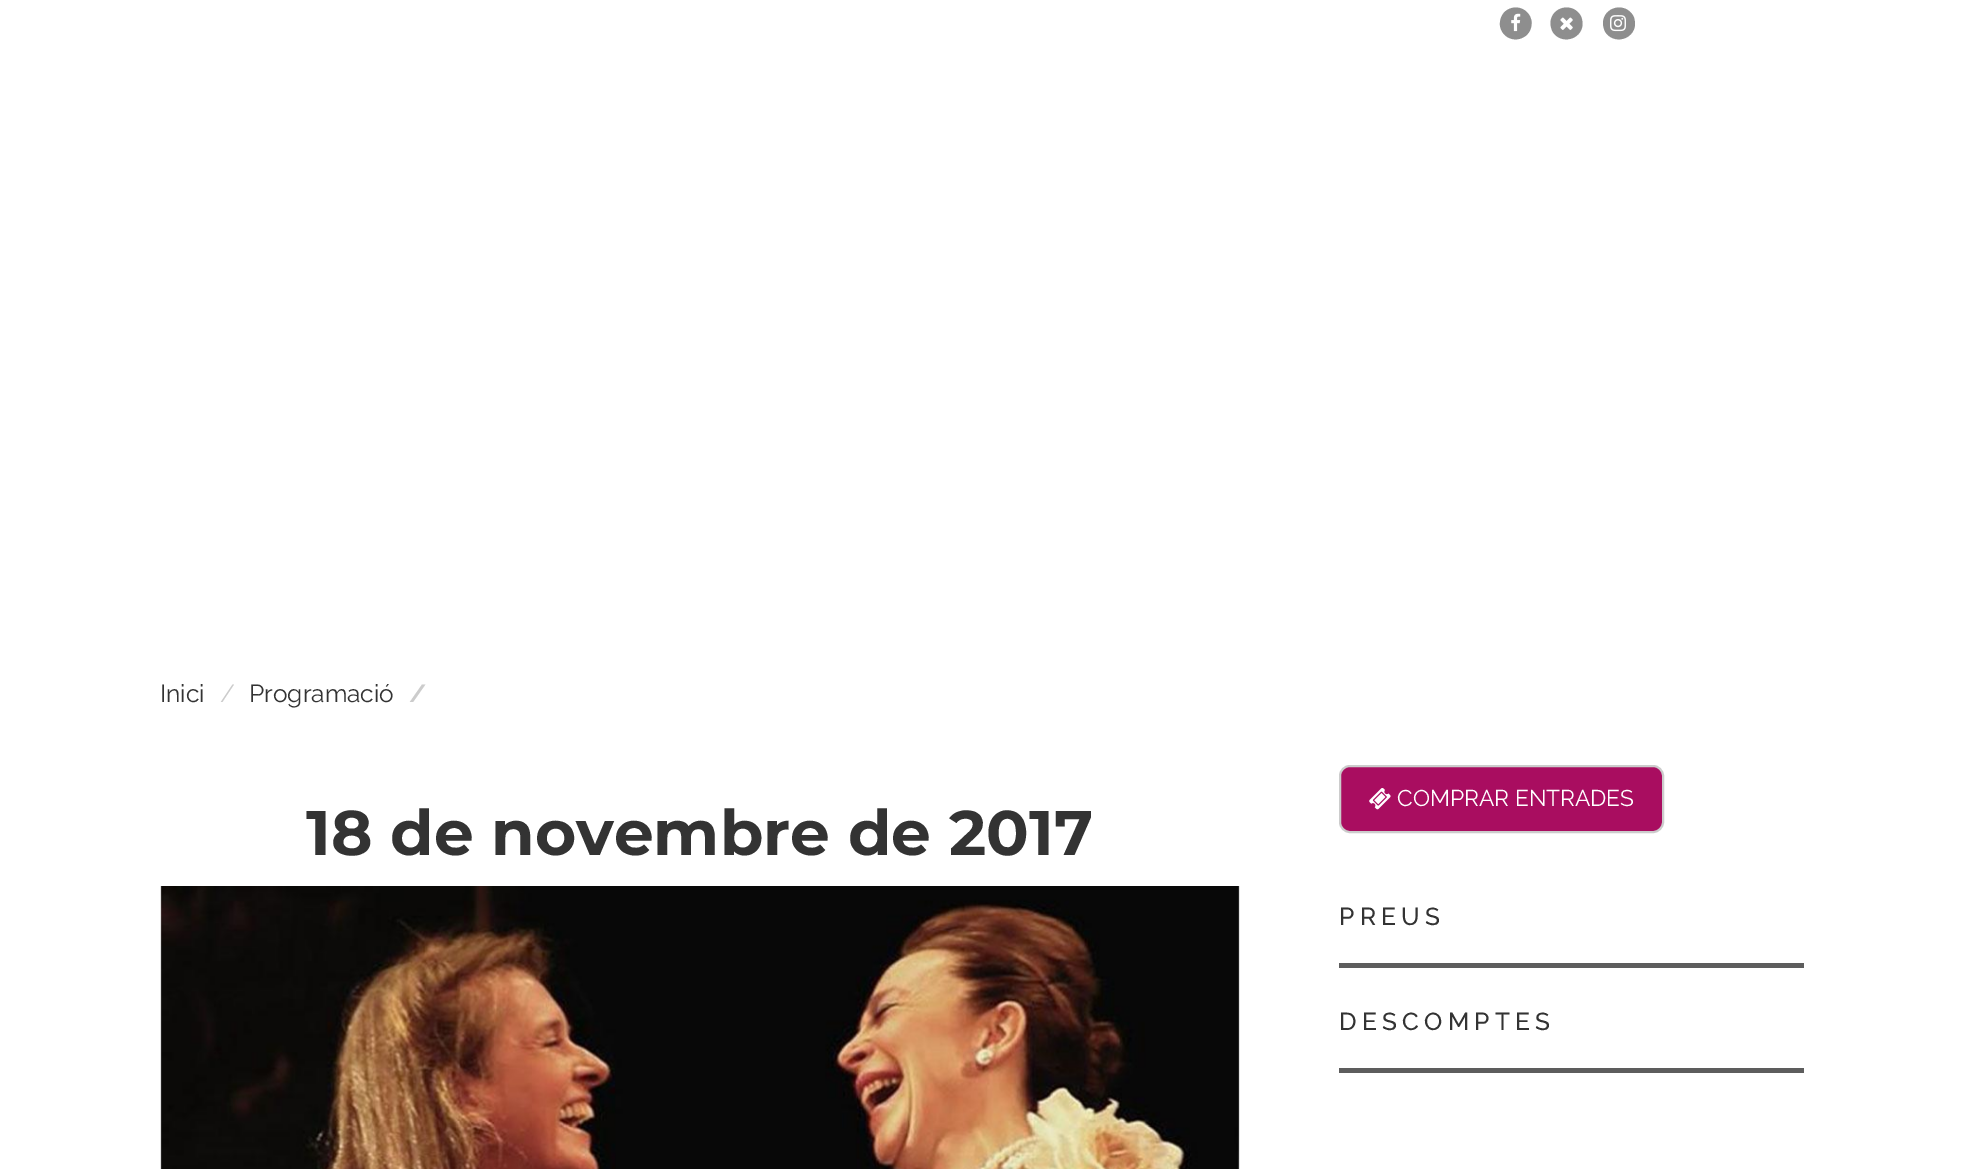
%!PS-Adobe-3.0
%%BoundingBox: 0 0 1965 1169
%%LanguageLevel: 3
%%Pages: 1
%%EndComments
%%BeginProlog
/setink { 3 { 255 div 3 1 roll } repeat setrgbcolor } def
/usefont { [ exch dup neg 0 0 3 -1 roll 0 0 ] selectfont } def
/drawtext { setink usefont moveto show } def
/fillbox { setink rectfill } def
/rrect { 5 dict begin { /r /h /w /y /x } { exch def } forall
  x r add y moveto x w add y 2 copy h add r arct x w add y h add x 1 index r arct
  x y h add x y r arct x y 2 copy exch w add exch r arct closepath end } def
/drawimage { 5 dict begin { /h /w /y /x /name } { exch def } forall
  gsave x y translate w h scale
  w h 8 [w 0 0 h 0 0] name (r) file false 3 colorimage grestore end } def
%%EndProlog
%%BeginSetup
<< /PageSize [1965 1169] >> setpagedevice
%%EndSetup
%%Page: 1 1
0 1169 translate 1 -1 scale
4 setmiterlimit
0 0 1965 1169 255 255 255 fillbox
142 142 142 setink
1529.5 15.5 moveto 1531 18 1532 21.5 1531.5 24.5 curveto 1530.5 40 1510 45 1502 31.5 curveto 1500.5 28.5 1499.5 25.5 1500 22.5 curveto 1501 6.5 1521.5 2 1529.5 15.5 curveto closepath fill
(assets/img1.rgb) 1511 13 10 19 drawimage
1580.5 15.5 moveto 1582 18 1582.5 21.5 1582.5 24.5 curveto 1581.5 40 1560.5 45 1552.5 31.5 curveto 1551 28.5 1550.5 25.5 1550.5 22.5 curveto 1551.5 6.5 1572.5 2 1580.5 15.5 curveto closepath fill
(assets/img2.rgb) 1560 17 13 13 drawimage
1633 15.5 moveto 1634.5 18 1635 21.5 1635 24.5 curveto 1634 40 1613 45 1605 31.5 curveto 1603.5 28.5 1603 25.5 1603 22.5 curveto 1604 6.5 1625 2 1633 15.5 curveto closepath fill
(assets/img3.rgb) 1610 15 16 17 drawimage
(Inici) 160 702 /Raleway-Regular 24.5 51 51 51 drawtext
(/) 220 702 /Raleway-Regular 24.5 204 204 204 drawtext
(Programació) 249 702 /Raleway-Regular 24.5 51 51 51 drawtext
(/) 409 702 /Raleway-Bold 24.5 204 204 204 drawtext
169 13 96 setink
1340 766 323 66 10 rrect gsave fill grestore
204 204 204 setink
2 setlinewidth
stroke
(assets/img4.rgb) 1369 788 22 22 drawimage
(COMPRAR ENTRADES) 1397 806 /Raleway-Regular 22.75 255 255 255 drawtext
(18 de novembre de 2017) 306 855 /Montserrat-Bold 63 51 51 51 drawtext
(assets/img5.rgb) 160 886 1080 283 drawimage
/Raleway-Medium 24.5 usefont
1339 925 moveto 5.25 0 (PREUS) ashow
1339 963 465 5 93 93 93 fillbox
51 51 51 setink
1339 1030 moveto 5.25 0 (DESCOMPTES) ashow
1339 1068 465 5 93 93 93 fillbox
showpage
%%EOF
